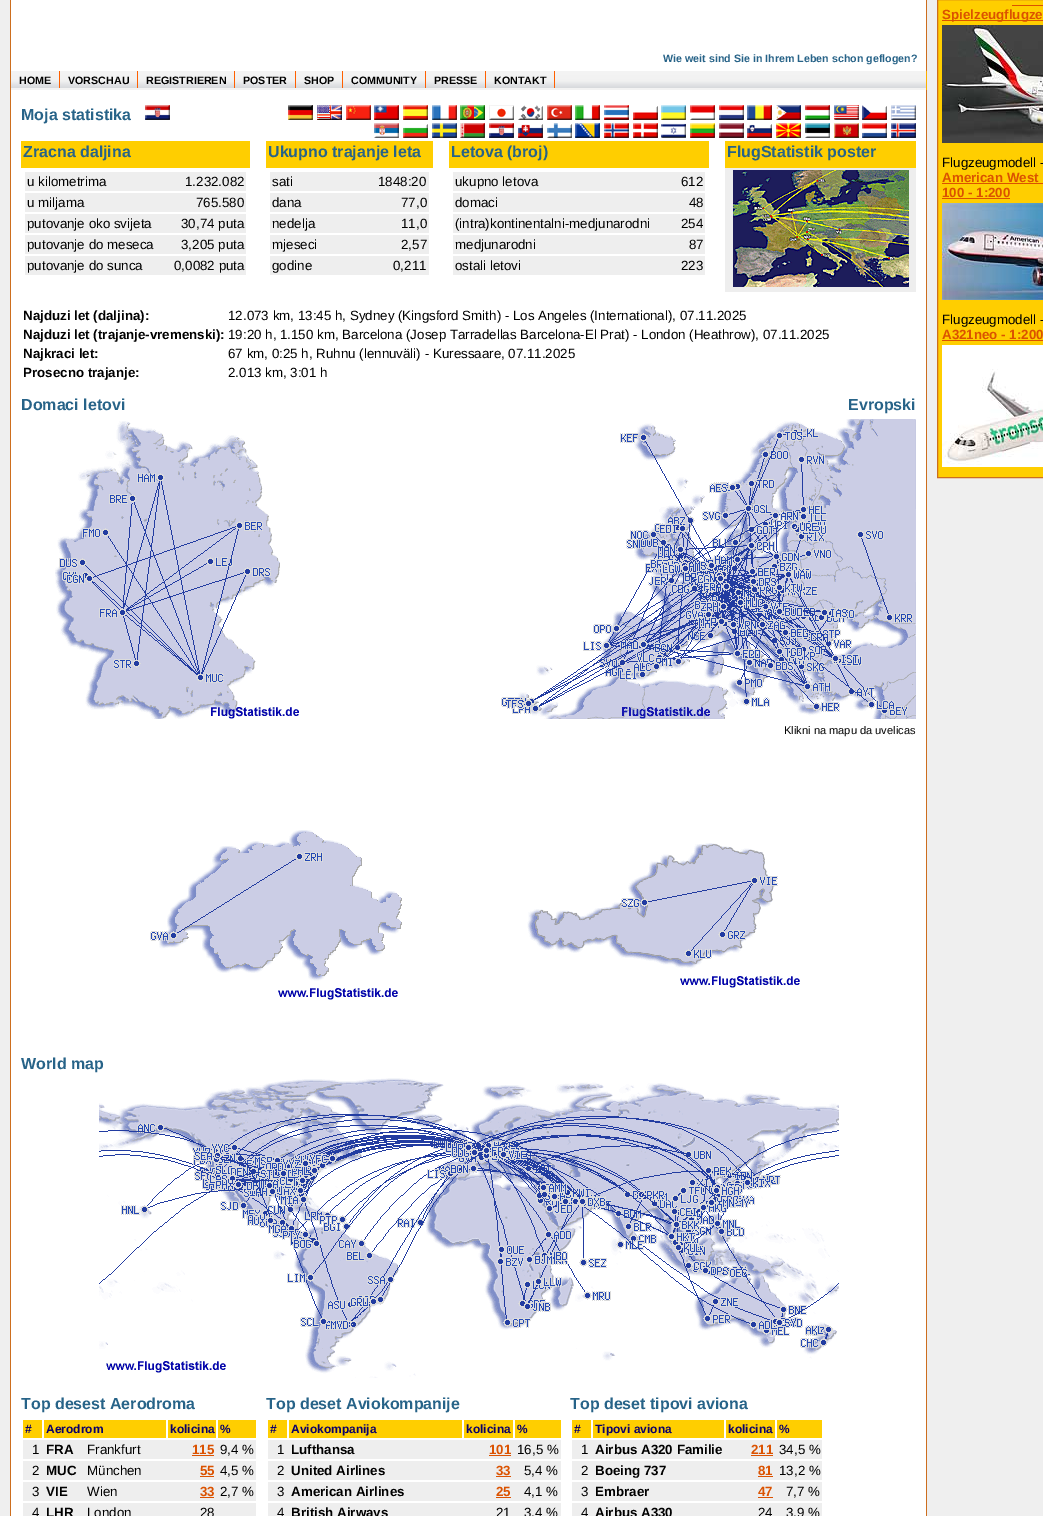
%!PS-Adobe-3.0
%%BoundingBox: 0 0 1043 1516
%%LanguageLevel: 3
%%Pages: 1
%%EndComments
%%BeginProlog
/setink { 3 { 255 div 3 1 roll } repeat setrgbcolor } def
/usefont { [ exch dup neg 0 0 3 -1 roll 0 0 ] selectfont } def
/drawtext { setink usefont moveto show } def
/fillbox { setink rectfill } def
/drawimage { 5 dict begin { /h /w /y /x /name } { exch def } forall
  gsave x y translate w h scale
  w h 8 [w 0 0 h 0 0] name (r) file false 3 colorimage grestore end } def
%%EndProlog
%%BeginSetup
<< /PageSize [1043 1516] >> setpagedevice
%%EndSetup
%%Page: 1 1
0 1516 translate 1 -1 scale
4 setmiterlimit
0 0 1043 1516 239 239 239 fillbox
11 0 915 1516 255 255 255 fillbox
926 0 1 1516 205 110 30 fillbox
10 0 1 1516 205 110 30 fillbox
(Wie weit sind Sie in Ihrem Leben schon geflogen?) 663 62 /LiberationSans-Bold 10.7 39 99 136 drawtext
(assets/img1.rgb) 11 88 915 2 drawimage
926 71 1 19 255 174 0 fillbox
(assets/img2.rgb) 555 71 371 17 drawimage
(assets/img3.rgb) 11 71 48 17 drawimage
59 71 1 17 255 96 0 fillbox
(HOME) 19 84 /LiberationSans-Bold 10.7 0 0 0 drawtext
(assets/img4.rgb) 60 71 77 17 drawimage
137 71 1 17 255 96 0 fillbox
(VORSCHAU) 68 84 /LiberationSans-Bold 10.7 0 0 0 drawtext
(assets/img5.rgb) 138 71 96 17 drawimage
234 71 1 17 255 96 0 fillbox
(REGISTRIEREN) 146 84 /LiberationSans-Bold 10.7 0 0 0 drawtext
(assets/img6.rgb) 235 71 60 17 drawimage
295 71 1 17 255 96 0 fillbox
(POSTER) 243 84 /LiberationSans-Bold 10.7 0 0 0 drawtext
(assets/img7.rgb) 296 71 46 17 drawimage
342 71 1 17 255 96 0 fillbox
(SHOP) 304 84 /LiberationSans-Bold 10.7 0 0 0 drawtext
(assets/img8.rgb) 343 71 82 17 drawimage
425 71 1 17 255 96 0 fillbox
(COMMUNITY) 351 84 /LiberationSans-Bold 10.7 0 0 0 drawtext
(assets/img9.rgb) 426 71 59 17 drawimage
485 71 1 17 255 96 0 fillbox
(PRESSE) 434 84 /LiberationSans-Bold 10.7 0 0 0 drawtext
(assets/img10.rgb) 486 71 68 17 drawimage
554 71 1 17 255 96 0 fillbox
(KONTAKT) 494 84 /LiberationSans-Bold 10.7 0 0 0 drawtext
(Moja statistika) 21 120 /LiberationSans-Bold 16 39 99 136 drawtext
(assets/img11.rgb) 145 105 25 15 drawimage
(assets/img12.rgb) 288 105 25 15 drawimage
(assets/img13.rgb) 317 105 25 15 drawimage
(assets/img14.rgb) 346 105 25 15 drawimage
(assets/img15.rgb) 374 105 25 15 drawimage
(assets/img16.rgb) 403 105 25 15 drawimage
(assets/img17.rgb) 432 105 25 15 drawimage
(assets/img18.rgb) 460 105 25 15 drawimage
(assets/img19.rgb) 489 105 25 15 drawimage
(assets/img20.rgb) 518 105 25 15 drawimage
(assets/img21.rgb) 547 105 25 15 drawimage
(assets/img22.rgb) 575 105 25 15 drawimage
(assets/img23.rgb) 604 105 25 15 drawimage
(assets/img24.rgb) 633 106 25 14 drawimage
(assets/img25.rgb) 661 105 25 15 drawimage
(assets/img26.rgb) 690 105 25 15 drawimage
(assets/img27.rgb) 719 105 25 15 drawimage
(assets/img28.rgb) 747 105 25 15 drawimage
(assets/img29.rgb) 776 105 25 15 drawimage
(assets/img30.rgb) 805 105 25 15 drawimage
(assets/img31.rgb) 834 105 25 15 drawimage
(assets/img32.rgb) 862 105 25 15 drawimage
(assets/img33.rgb) 891 105 25 15 drawimage
(assets/img34.rgb) 374 123 25 15 drawimage
(assets/img35.rgb) 403 124 25 14 drawimage
(assets/img36.rgb) 432 123 25 15 drawimage
(assets/img37.rgb) 460 123 25 15 drawimage
(assets/img11.rgb) 489 123 25 15 drawimage
(assets/img38.rgb) 518 124 25 14 drawimage
(assets/img39.rgb) 547 123 25 15 drawimage
(assets/img40.rgb) 575 123 25 15 drawimage
(assets/img41.rgb) 604 123 25 15 drawimage
(assets/img42.rgb) 633 123 25 15 drawimage
(assets/img43.rgb) 661 123 25 15 drawimage
(assets/img44.rgb) 690 123 25 15 drawimage
(assets/img45.rgb) 719 123 25 15 drawimage
(assets/img46.rgb) 747 124 25 14 drawimage
(assets/img47.rgb) 776 123 25 15 drawimage
(assets/img48.rgb) 805 123 25 15 drawimage
(assets/img49.rgb) 834 123 25 15 drawimage
(assets/img50.rgb) 862 123 25 15 drawimage
(assets/img51.rgb) 891 123 25 15 drawimage
21 141 229 27 255 206 0 fillbox
(Zracna daljina) 23 157 /LiberationSans-Bold 16 39 99 136 drawtext
266 141 167 27 255 206 0 fillbox
(Ukupno trajanje leta) 268 157 /LiberationSans-Bold 16 39 99 136 drawtext
449 141 260 27 255 206 0 fillbox
(Letova \(broj\)) 451 157 /LiberationSans-Bold 16 39 99 136 drawtext
725 141 191 27 255 206 0 fillbox
(FlugStatistik poster) 727 157 /LiberationSans-Bold 16 39 99 136 drawtext
25 172 221 19 238 238 238 fillbox
(u kilometrima) 27 186 /LiberationSans-Regular 13.35 0 0 0 drawtext
(1.232.082) 185 186 /LiberationSans-Regular 13.35 0 0 0 drawtext
25 193 221 19 238 238 238 fillbox
(u miljama) 27 207 /LiberationSans-Regular 13.35 0 0 0 drawtext
(765.580) 196 207 /LiberationSans-Regular 13.35 0 0 0 drawtext
25 214 221 19 238 238 238 fillbox
(putovanje oko svijeta) 27 228 /LiberationSans-Regular 13.35 0 0 0 drawtext
(30,74 puta) 181 228 /LiberationSans-Regular 13.35 0 0 0 drawtext
25 235 221 19 238 238 238 fillbox
(putovanje do meseca) 27 249 /LiberationSans-Regular 13.35 0 0 0 drawtext
(3,205 puta) 181 249 /LiberationSans-Regular 13.35 0 0 0 drawtext
25 256 221 19 238 238 238 fillbox
(putovanje do sunca) 27 270 /LiberationSans-Regular 13.35 0 0 0 drawtext
(0,0082 puta) 174 270 /LiberationSans-Regular 13.35 0 0 0 drawtext
270 172 159 19 238 238 238 fillbox
(sati) 272 186 /LiberationSans-Regular 13.35 0 0 0 drawtext
(1848:20) 378 186 /LiberationSans-Regular 13.35 0 0 0 drawtext
270 193 159 19 238 238 238 fillbox
(dana) 272 207 /LiberationSans-Regular 13.35 0 0 0 drawtext
(77,0) 401 207 /LiberationSans-Regular 13.35 0 0 0 drawtext
270 214 159 19 238 238 238 fillbox
(nedelja) 272 228 /LiberationSans-Regular 13.35 0 0 0 drawtext
(11,0) 401 228 /LiberationSans-Regular 13.35 0 0 0 drawtext
270 235 159 19 238 238 238 fillbox
(mjeseci) 272 249 /LiberationSans-Regular 13.35 0 0 0 drawtext
(2,57) 401 249 /LiberationSans-Regular 13.35 0 0 0 drawtext
270 256 159 19 238 238 238 fillbox
(godine) 272 270 /LiberationSans-Regular 13.35 0 0 0 drawtext
(0,211) 393 270 /LiberationSans-Regular 13.35 0 0 0 drawtext
453 172 252 19 238 238 238 fillbox
(ukupno letova) 455 186 /LiberationSans-Regular 13.35 0 0 0 drawtext
(612) 681 186 /LiberationSans-Regular 13.35 0 0 0 drawtext
453 193 252 19 238 238 238 fillbox
(domaci) 455 207 /LiberationSans-Regular 13.35 0 0 0 drawtext
(48) 689 207 /LiberationSans-Regular 13.35 0 0 0 drawtext
453 214 252 19 238 238 238 fillbox
(\(intra\)kontinentalni-medjunarodni) 455 228 /LiberationSans-Regular 13.35 0 0 0 drawtext
(254) 681 228 /LiberationSans-Regular 13.35 0 0 0 drawtext
453 235 252 19 238 238 238 fillbox
(medjunarodni) 455 249 /LiberationSans-Regular 13.35 0 0 0 drawtext
(87) 689 249 /LiberationSans-Regular 13.35 0 0 0 drawtext
453 256 252 19 238 238 238 fillbox
(ostali letovi) 455 270 /LiberationSans-Regular 13.35 0 0 0 drawtext
(223) 681 270 /LiberationSans-Regular 13.35 0 0 0 drawtext
725 168 191 124 238 238 238 fillbox
(assets/img52.rgb) 733 170 176 117 drawimage
(Najduzi let \(daljina\):) 23 320 /LiberationSans-Bold 13.35 0 0 0 drawtext
(12.073 km, 13:45 h, Sydney \(Kingsford Smith\) - Los Angeles \(International\), 07.11.2025) 228 320 /LiberationSans-Regular 13.35 0 0 0 drawtext
(Najduzi let \(trajanje-vremenski\):) 23 339 /LiberationSans-Bold 13.35 0 0 0 drawtext
(19:20 h, 1.150 km, Barcelona \(Josep Tarradellas Barcelona-El Prat\) - London \(Heathrow\), 07.11.2025) 228 339 /LiberationSans-Regular 13.35 0 0 0 drawtext
(Najkraci let:) 23 358 /LiberationSans-Bold 13.35 0 0 0 drawtext
(67 km, 0:25 h, Ruhnu \(lennuväli\) - Kuressaare, 07.11.2025) 228 358 /LiberationSans-Regular 13.35 0 0 0 drawtext
(Prosecno trajanje:) 23 377 /LiberationSans-Bold 13.35 0 0 0 drawtext
(2.013 km, 3:01 h) 228 377 /LiberationSans-Regular 13.35 0 0 0 drawtext
(Domaci letovi) 21 410 /LiberationSans-Bold 16 39 99 136 drawtext
(assets/img53.rgb) 55 421 244 298 drawimage
(Evropski) 848 410 /LiberationSans-Bold 16 39 99 136 drawtext
(assets/img54.rgb) 501 419 415 300 drawimage
(Klikni na mapu da uvelicas) 784 734 /LiberationSans-Regular 11.1 0 0 0 drawtext
(assets/img55.rgb) 150 830 252 170 drawimage
(assets/img56.rgb) 527 843 273 145 drawimage
(World map) 21 1069 /LiberationSans-Bold 16 39 99 136 drawtext
(assets/img57.rgb) 99 1078 740 300 drawimage
(Top desest Aerodroma) 21 1409 /LiberationSans-Bold 16 39 99 136 drawtext
23 1420 19 18 255 206 0 fillbox
(#) 25 1433 /LiberationSans-Bold 12 10 0 107 drawtext
44 1420 122 18 255 206 0 fillbox
(Aerodrom) 46 1433 /LiberationSans-Bold 12 10 0 107 drawtext
168 1420 48 18 255 206 0 fillbox
(kolicina) 170 1433 /LiberationSans-Bold 12 10 0 107 drawtext
218 1420 38 18 255 206 0 fillbox
(%) 220 1433 /LiberationSans-Bold 12 10 0 107 drawtext
23 1440 233 19 238 238 238 fillbox
(1) 32 1454 /LiberationSans-Regular 13.35 0 0 0 drawtext
(FRA) 46 1454 /LiberationSans-Bold 13.35 0 0 0 drawtext
(Frankfurt) 87 1454 /LiberationSans-Regular 13.35 0 0 0 drawtext
(115) 192 1454 /LiberationSans-Bold 13.35 219 82 0 drawtext
192 1455 22 1 219 82 0 fillbox
(9,4 %) 220 1454 /LiberationSans-Regular 13.35 0 0 0 drawtext
23 1461 233 19 238 238 238 fillbox
(2) 32 1475 /LiberationSans-Regular 13.35 0 0 0 drawtext
(MUC) 46 1475 /LiberationSans-Bold 13.35 0 0 0 drawtext
(München) 87 1475 /LiberationSans-Regular 13.35 0 0 0 drawtext
(55) 200 1475 /LiberationSans-Bold 13.35 219 82 0 drawtext
200 1476 14 1 219 82 0 fillbox
(4,5 %) 220 1475 /LiberationSans-Regular 13.35 0 0 0 drawtext
23 1482 233 19 238 238 238 fillbox
(3) 32 1496 /LiberationSans-Regular 13.35 0 0 0 drawtext
(VIE) 46 1496 /LiberationSans-Bold 13.35 0 0 0 drawtext
(Wien) 87 1496 /LiberationSans-Regular 13.35 0 0 0 drawtext
(33) 200 1496 /LiberationSans-Bold 13.35 219 82 0 drawtext
200 1497 14 1 219 82 0 fillbox
(2,7 %) 220 1496 /LiberationSans-Regular 13.35 0 0 0 drawtext
23 1503 233 13 238 238 238 fillbox
(4) 32 1517 /LiberationSans-Regular 13.35 0 0 0 drawtext
(LHR) 46 1517 /LiberationSans-Bold 13.35 0 0 0 drawtext
(London) 87 1517 /LiberationSans-Regular 13.35 0 0 0 drawtext
(28) 200 1517 /LiberationSans-Regular 13.35 0 0 0 drawtext
(Top deset Aviokompanije) 266 1409 /LiberationSans-Bold 16 39 99 136 drawtext
268 1420 19 18 255 206 0 fillbox
(#) 270 1433 /LiberationSans-Bold 12 10 0 107 drawtext
289 1420 173 18 255 206 0 fillbox
(Aviokompanija) 291 1433 /LiberationSans-Bold 12 10 0 107 drawtext
464 1420 49 18 255 206 0 fillbox
(kolicina) 466 1433 /LiberationSans-Bold 12 10 0 107 drawtext
515 1420 46 18 255 206 0 fillbox
(%) 517 1433 /LiberationSans-Bold 12 10 0 107 drawtext
268 1440 293 19 238 238 238 fillbox
(1) 277 1454 /LiberationSans-Regular 13.35 0 0 0 drawtext
(Lufthansa) 291 1454 /LiberationSans-Bold 13.35 0 0 0 drawtext
(101) 489 1454 /LiberationSans-Bold 13.35 219 82 0 drawtext
489 1455 22 1 219 82 0 fillbox
(16,5 %) 517 1454 /LiberationSans-Regular 13.35 0 0 0 drawtext
268 1461 293 19 238 238 238 fillbox
(2) 277 1475 /LiberationSans-Regular 13.35 0 0 0 drawtext
(United Airlines) 291 1475 /LiberationSans-Bold 13.35 0 0 0 drawtext
(33) 496 1475 /LiberationSans-Bold 13.35 219 82 0 drawtext
496 1476 15 1 219 82 0 fillbox
(5,4 %) 524 1475 /LiberationSans-Regular 13.35 0 0 0 drawtext
268 1482 293 19 238 238 238 fillbox
(3) 277 1496 /LiberationSans-Regular 13.35 0 0 0 drawtext
(American Airlines) 291 1496 /LiberationSans-Bold 13.35 0 0 0 drawtext
(25) 496 1496 /LiberationSans-Bold 13.35 219 82 0 drawtext
496 1497 15 1 219 82 0 fillbox
(4,1 %) 524 1496 /LiberationSans-Regular 13.35 0 0 0 drawtext
268 1503 293 13 238 238 238 fillbox
(4) 277 1517 /LiberationSans-Regular 13.35 0 0 0 drawtext
(British Airways) 291 1517 /LiberationSans-Bold 13.35 0 0 0 drawtext
(21) 496 1517 /LiberationSans-Regular 13.35 0 0 0 drawtext
(3,4 %) 524 1517 /LiberationSans-Regular 13.35 0 0 0 drawtext
(Top deset tipovi aviona) 570 1409 /LiberationSans-Bold 16 39 99 136 drawtext
572 1420 19 18 255 206 0 fillbox
(#) 574 1433 /LiberationSans-Bold 12 10 0 107 drawtext
593 1420 131 18 255 206 0 fillbox
(Tipovi aviona) 595 1433 /LiberationSans-Bold 12 10 0 107 drawtext
726 1420 49 18 255 206 0 fillbox
(kolicina) 728 1433 /LiberationSans-Bold 12 10 0 107 drawtext
777 1420 45 18 255 206 0 fillbox
(%) 779 1433 /LiberationSans-Bold 12 10 0 107 drawtext
572 1440 250 19 238 238 238 fillbox
(1) 581 1454 /LiberationSans-Regular 13.35 0 0 0 drawtext
(Airbus A320 Familie) 595 1454 /LiberationSans-Bold 13.35 0 0 0 drawtext
(211) 751 1454 /LiberationSans-Bold 13.35 219 82 0 drawtext
751 1455 22 1 219 82 0 fillbox
(34,5 %) 779 1454 /LiberationSans-Regular 13.35 0 0 0 drawtext
572 1461 250 19 238 238 238 fillbox
(2) 581 1475 /LiberationSans-Regular 13.35 0 0 0 drawtext
(Boeing 737) 595 1475 /LiberationSans-Bold 13.35 0 0 0 drawtext
(81) 758 1475 /LiberationSans-Bold 13.35 219 82 0 drawtext
758 1476 15 1 219 82 0 fillbox
(13,2 %) 779 1475 /LiberationSans-Regular 13.35 0 0 0 drawtext
572 1482 250 19 238 238 238 fillbox
(3) 581 1496 /LiberationSans-Regular 13.35 0 0 0 drawtext
(Embraer) 595 1496 /LiberationSans-Bold 13.35 0 0 0 drawtext
(47) 758 1496 /LiberationSans-Bold 13.35 219 82 0 drawtext
758 1497 15 1 219 82 0 fillbox
(7,7 %) 786 1496 /LiberationSans-Regular 13.35 0 0 0 drawtext
572 1503 250 13 238 238 238 fillbox
(4) 581 1517 /LiberationSans-Regular 13.35 0 0 0 drawtext
(Airbus A330) 595 1517 /LiberationSans-Bold 13.35 0 0 0 drawtext
(24) 758 1517 /LiberationSans-Regular 13.35 0 0 0 drawtext
(3,9 %) 786 1517 /LiberationSans-Regular 13.35 0 0 0 drawtext
255 206 0 setink
937.5 -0.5 moveto 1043.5 -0.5 lineto 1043.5 477.5 lineto 937.5 477.5 lineto closepath gsave fill grestore
205 110 30 setink
stroke
942 20 101 1 219 82 0 fillbox
(Spielzeugflugze) 942 19 /LiberationSans-Bold 13.35 219 82 0 drawtext
1012 5 31 1 219 82 0 fillbox
(assets/img58.rgb) 942 25 101 118 drawimage
(Flugzeugmodell -) 942 167 /LiberationSans-Regular 13.35 0 0 0 drawtext
(American West) 942 182 /LiberationSans-Bold 13.35 219 82 0 drawtext
942 183 101 1 219 82 0 fillbox
(100 - 1:200) 942 197 /LiberationSans-Bold 13.35 219 82 0 drawtext
942 198 68 1 219 82 0 fillbox
(assets/img59.rgb) 942 203 101 97 drawimage
(Flugzeugmodell -) 942 324 /LiberationSans-Regular 13.35 0 0 0 drawtext
(A321neo - 1:200) 942 339 /LiberationSans-Bold 13.35 219 82 0 drawtext
942 340 101 1 219 82 0 fillbox
(assets/img60.rgb) 942 345 101 122 drawimage
showpage
%%EOF
